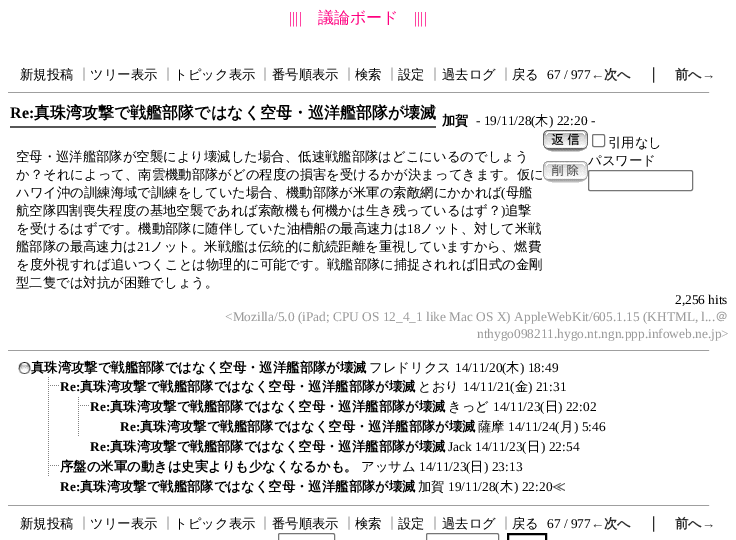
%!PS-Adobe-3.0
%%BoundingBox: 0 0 736 540
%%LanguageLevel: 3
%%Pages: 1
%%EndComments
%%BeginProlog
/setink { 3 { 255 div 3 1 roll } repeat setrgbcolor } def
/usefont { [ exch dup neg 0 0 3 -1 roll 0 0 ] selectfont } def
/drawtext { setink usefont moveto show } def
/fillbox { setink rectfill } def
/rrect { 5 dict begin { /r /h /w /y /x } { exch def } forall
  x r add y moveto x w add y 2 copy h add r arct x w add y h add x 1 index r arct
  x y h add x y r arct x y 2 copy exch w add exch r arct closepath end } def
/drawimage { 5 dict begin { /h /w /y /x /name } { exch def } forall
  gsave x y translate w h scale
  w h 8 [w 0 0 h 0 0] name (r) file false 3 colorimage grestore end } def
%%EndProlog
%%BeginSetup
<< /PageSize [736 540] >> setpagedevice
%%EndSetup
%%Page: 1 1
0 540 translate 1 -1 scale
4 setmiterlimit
0 0 736 540 255 255 255 fillbox
(||||) 289 23 /LiberationSerif-Regular 16 255 0 128 drawtext
(議論ボード) 318 23 /WenQuanYiZenHei-Medium 16 255 0 128 drawtext
(||||) 414 23 /LiberationSerif-Regular 16 255 0 128 drawtext
(新規投稿) 20 79 /WenQuanYiZenHei-Medium 13.35 0 0 0 drawtext
(┃) 77 79 /WenQuanYiZenHei-Medium 13.35 153 153 153 drawtext
(ツリー表示) 90 79 /WenQuanYiZenHei-Medium 13.35 0 0 0 drawtext
(┃) 161 79 /WenQuanYiZenHei-Medium 13.35 153 153 153 drawtext
(トピック表示) 174 79 /WenQuanYiZenHei-Medium 13.35 0 0 0 drawtext
(┃) 258 79 /WenQuanYiZenHei-Medium 13.35 153 153 153 drawtext
(番号順表示) 272 79 /WenQuanYiZenHei-Medium 13.35 0 0 0 drawtext
(┃) 342 79 /WenQuanYiZenHei-Medium 13.35 153 153 153 drawtext
(検索) 355 79 /WenQuanYiZenHei-Medium 13.35 0 0 0 drawtext
(┃) 385 79 /WenQuanYiZenHei-Medium 13.35 153 153 153 drawtext
(設定) 398 79 /WenQuanYiZenHei-Medium 13.35 0 0 0 drawtext
(┃) 428 79 /WenQuanYiZenHei-Medium 13.35 153 153 153 drawtext
(過去ログ) 442 79 /WenQuanYiZenHei-Medium 13.35 0 0 0 drawtext
(┃) 499 79 /WenQuanYiZenHei-Medium 13.35 153 153 153 drawtext
(戻る) 512 79 /WenQuanYiZenHei-Medium 13.35 0 0 0 drawtext
(67 / 977) 547 79 /LiberationSerif-Regular 13.35 0 0 0 drawtext
(←) 591 79 /LiberationSerif-Bold 13.35 42 42 42 drawtext
(次へ) 604 79 /WenQuanYiZenHei-Bold 13.35 42 42 42 drawtext
(｜) 646 79 /WenQuanYiZenHei-Bold 15 42 42 42 drawtext
(前へ) 675 79 /WenQuanYiZenHei-Bold 13.35 42 42 42 drawtext
(→) 702 79 /LiberationSerif-Bold 13.35 42 42 42 drawtext
8 92 702 1 159 159 159 fillbox
709 92 1 1 238 238 238 fillbox
(Re:) 10 118 /LiberationSerif-Bold 16 0 0 0 drawtext
(真珠湾攻撃で戦艦部隊ではなく空母・巡洋艦部隊が壊滅) 34 118 /WenQuanYiZenHei-Bold 16 0 0 0 drawtext
10 126 426 2 87 87 87 fillbox
(加賀) 442 125 /WenQuanYiZenHei-Bold 13.35 0 0 0 drawtext
(- 19/11/28\() 476 125 /LiberationSerif-Regular 13.35 0 0 0 drawtext
(木) 535 125 /WenQuanYiZenHei-Medium 13.35 0 0 0 drawtext
(\) 22:20 -) 549 125 /LiberationSerif-Regular 13.35 0 0 0 drawtext
(空母・巡洋艦部隊が空襲により壊滅した場合、低速戦艦部隊はどこにいるのでしょう) 16 161 /WenQuanYiZenHei-Medium 13.35 0 0 0 drawtext
(か？それによって、南雲機動部隊がどの程度の損害を受けるかが決まってきます。仮に) 16 179 /WenQuanYiZenHei-Medium 13.35 0 0 0 drawtext
(ハワイ沖の訓練海域で訓練をしていた場合、機動部隊が米軍の索敵網にかかれば) 16 197 /WenQuanYiZenHei-Medium 13.35 0 0 0 drawtext
(\() 501 197 /LiberationSerif-Regular 13.35 0 0 0 drawtext
(母艦) 506 197 /WenQuanYiZenHei-Medium 13.35 0 0 0 drawtext
(航空隊四割喪失程度の基地空襲であれば索敵機も何機かは生き残っているはず？) 16 215 /WenQuanYiZenHei-Medium 13.35 0 0 0 drawtext
(\)) 501 215 /LiberationSerif-Regular 13.35 0 0 0 drawtext
(追撃) 505 215 /WenQuanYiZenHei-Medium 13.35 0 0 0 drawtext
(を受けるはずです。機動部隊に随伴していた油槽船の最高速力は) 16 233 /WenQuanYiZenHei-Medium 13.35 0 0 0 drawtext
(18) 407 233 /LiberationSerif-Regular 13.35 0 0 0 drawtext
(ノット、対して米戦) 420 233 /WenQuanYiZenHei-Medium 13.35 0 0 0 drawtext
(艦部隊の最高速力は) 16 251 /WenQuanYiZenHei-Medium 13.35 0 0 0 drawtext
(21) 137 251 /LiberationSerif-Regular 13.35 0 0 0 drawtext
(ノット。米戦艦は伝統的に航続距離を重視していますから、燃費) 150 251 /WenQuanYiZenHei-Medium 13.35 0 0 0 drawtext
(を度外視すれば追いつくことは物理的に可能です。戦艦部隊に捕捉されれば旧式の金剛) 16 269 /WenQuanYiZenHei-Medium 13.35 0 0 0 drawtext
(型二隻では対抗が困難でしょう。) 16 287 /WenQuanYiZenHei-Medium 13.35 0 0 0 drawtext
(assets/img1.rgb) 543 130 45 22 drawimage
118 118 118 setink
592.5 134.5 12 12 1.5 rrect stroke
(引用なし) 608 147 /WenQuanYiZenHei-Medium 13.35 0 0 0 drawtext
(assets/img2.rgb) 543 161 45 22 drawimage
(パスワード) 588 165 /WenQuanYiZenHei-Medium 13.35 0 0 0 drawtext
118 118 118 setink
588.5 170.5 104 20 1.5 rrect stroke
(2,256 hits) 675 304 /LiberationSerif-Regular 13.35 0 0 0 drawtext
(<Mozilla/5.0 \(iPad; CPU OS 12_4_1 like Mac OS X\) AppleWebKit/605.1.15 \(KHTML, l...) 225 321 /LiberationSerif-Regular 13.35 153 153 153 drawtext
(＠) 715 321 /WenQuanYiZenHei-Medium 13.35 153 153 153 drawtext
(nthygo098211.hygo.nt.ngn.ppp.infoweb.ne.jp>) 477 338 /LiberationSerif-Regular 13.35 153 153 153 drawtext
8 350 702 1 159 159 159 fillbox
709 350 1 1 238 238 238 fillbox
(assets/img3.rgb) 18 362 13 12 drawimage
(真珠湾攻撃で戦艦部隊ではなく空母・巡洋艦部隊が壊滅) 31 372 /WenQuanYiZenHei-Bold 13.35 0 0 0 drawtext
(フレドリクス) 369 372 /WenQuanYiZenHei-Medium 13.35 0 0 0 drawtext
(14/11/20\() 455 372 /LiberationSerif-Regular 13.35 0 0 0 drawtext
(木) 506 372 /WenQuanYiZenHei-Medium 13.35 0 0 0 drawtext
(\) 18:49) 520 372 /LiberationSerif-Regular 13.35 0 0 0 drawtext
(assets/img4.rgb) 48 377 11 19 drawimage
(Re:) 60 391 /LiberationSerif-Bold 13.35 0 0 0 drawtext
(真珠湾攻撃で戦艦部隊ではなく空母・巡洋艦部隊が壊滅) 80 391 /WenQuanYiZenHei-Bold 13.35 0 0 0 drawtext
(とおり) 418 391 /WenQuanYiZenHei-Medium 13.35 0 0 0 drawtext
(14/11/21\() 463 391 /LiberationSerif-Regular 13.35 0 0 0 drawtext
(金) 515 391 /WenQuanYiZenHei-Medium 13.35 0 0 0 drawtext
(\) 21:31) 528 391 /LiberationSerif-Regular 13.35 0 0 0 drawtext
(assets/img5.rgb) 48 397 1 19 drawimage
(assets/img4.rgb) 78 397 11 19 drawimage
(Re:) 90 411 /LiberationSerif-Bold 13.35 0 0 0 drawtext
(真珠湾攻撃で戦艦部隊ではなく空母・巡洋艦部隊が壊滅) 110 411 /WenQuanYiZenHei-Bold 13.35 0 0 0 drawtext
(きっど) 448 411 /WenQuanYiZenHei-Medium 13.35 0 0 0 drawtext
(14/11/23\() 493 411 /LiberationSerif-Regular 13.35 0 0 0 drawtext
(日) 545 411 /WenQuanYiZenHei-Medium 13.35 0 0 0 drawtext
(\) 22:02) 558 411 /LiberationSerif-Regular 13.35 0 0 0 drawtext
(assets/img5.rgb) 48 417 1 19 drawimage
(assets/img5.rgb) 78 417 1 19 drawimage
(Re:) 120 431 /LiberationSerif-Bold 13.35 0 0 0 drawtext
(真珠湾攻撃で戦艦部隊ではなく空母・巡洋艦部隊が壊滅) 140 431 /WenQuanYiZenHei-Bold 13.35 0 0 0 drawtext
(薩摩) 478 431 /WenQuanYiZenHei-Medium 13.35 0 0 0 drawtext
(14/11/24\() 508 431 /LiberationSerif-Regular 13.35 0 0 0 drawtext
(月) 560 431 /WenQuanYiZenHei-Medium 13.35 0 0 0 drawtext
(\) 5:46) 574 431 /LiberationSerif-Regular 13.35 0 0 0 drawtext
(assets/img5.rgb) 48 437 1 19 drawimage
(Re:) 90 451 /LiberationSerif-Bold 13.35 0 0 0 drawtext
(真珠湾攻撃で戦艦部隊ではなく空母・巡洋艦部隊が壊滅) 110 451 /WenQuanYiZenHei-Bold 13.35 0 0 0 drawtext
(Jack 14/11/23\() 448 451 /LiberationSerif-Regular 13.35 0 0 0 drawtext
(日) 527 451 /WenQuanYiZenHei-Medium 13.35 0 0 0 drawtext
(\) 22:54) 541 451 /LiberationSerif-Regular 13.35 0 0 0 drawtext
(assets/img4.rgb) 48 457 11 19 drawimage
(序盤の米軍の動きは史実よりも少なくなるかも。) 60 471 /WenQuanYiZenHei-Bold 13.35 0 0 0 drawtext
(アッサム) 361 471 /WenQuanYiZenHei-Medium 13.35 0 0 0 drawtext
(14/11/23\() 419 471 /LiberationSerif-Regular 13.35 0 0 0 drawtext
(日) 470 471 /WenQuanYiZenHei-Medium 13.35 0 0 0 drawtext
(\) 23:13) 484 471 /LiberationSerif-Regular 13.35 0 0 0 drawtext
(Re:) 60 491 /LiberationSerif-Bold 13.35 0 0 0 drawtext
(真珠湾攻撃で戦艦部隊ではなく空母・巡洋艦部隊が壊滅) 80 491 /WenQuanYiZenHei-Bold 13.35 0 0 0 drawtext
(加賀) 418 491 /WenQuanYiZenHei-Medium 13.35 0 0 0 drawtext
(19/11/28\() 448 491 /LiberationSerif-Regular 13.35 0 0 0 drawtext
(木) 500 491 /WenQuanYiZenHei-Medium 13.35 0 0 0 drawtext
(\) 22:20) 514 491 /LiberationSerif-Regular 13.35 0 0 0 drawtext
(≪) 552 491 /WenQuanYiZenHei-Bold 13.35 85 85 85 drawtext
8 505 702 1 159 159 159 fillbox
709 505 1 1 238 238 238 fillbox
(新規投稿) 20 528 /WenQuanYiZenHei-Medium 13.35 0 0 0 drawtext
(┃) 77 528 /WenQuanYiZenHei-Medium 13.35 153 153 153 drawtext
(ツリー表示) 90 528 /WenQuanYiZenHei-Medium 13.35 0 0 0 drawtext
(┃) 161 528 /WenQuanYiZenHei-Medium 13.35 153 153 153 drawtext
(トピック表示) 174 528 /WenQuanYiZenHei-Medium 13.35 0 0 0 drawtext
(┃) 258 528 /WenQuanYiZenHei-Medium 13.35 153 153 153 drawtext
(番号順表示) 272 528 /WenQuanYiZenHei-Medium 13.35 0 0 0 drawtext
(┃) 342 528 /WenQuanYiZenHei-Medium 13.35 153 153 153 drawtext
(検索) 355 528 /WenQuanYiZenHei-Medium 13.35 0 0 0 drawtext
(┃) 385 528 /WenQuanYiZenHei-Medium 13.35 153 153 153 drawtext
(設定) 398 528 /WenQuanYiZenHei-Medium 13.35 0 0 0 drawtext
(┃) 428 528 /WenQuanYiZenHei-Medium 13.35 153 153 153 drawtext
(過去ログ) 442 528 /WenQuanYiZenHei-Medium 13.35 0 0 0 drawtext
(┃) 499 528 /WenQuanYiZenHei-Medium 13.35 153 153 153 drawtext
(戻る) 512 528 /WenQuanYiZenHei-Medium 13.35 0 0 0 drawtext
(67 / 977) 547 528 /LiberationSerif-Regular 13.35 0 0 0 drawtext
(←) 591 528 /LiberationSerif-Bold 13.35 42 42 42 drawtext
(次へ) 604 528 /WenQuanYiZenHei-Bold 13.35 42 42 42 drawtext
(｜) 646 528 /WenQuanYiZenHei-Bold 15 42 42 42 drawtext
(前へ) 675 528 /WenQuanYiZenHei-Bold 13.35 42 42 42 drawtext
(→) 702 528 /LiberationSerif-Bold 13.35 42 42 42 drawtext
118 118 118 setink
278.5 533.5 56 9 1.5 rrect stroke
426.5 533.5 72 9 1.5 rrect stroke
0 0 0 setink
2 setlinewidth
508 534 38 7 rectstroke
showpage
%%EOF
